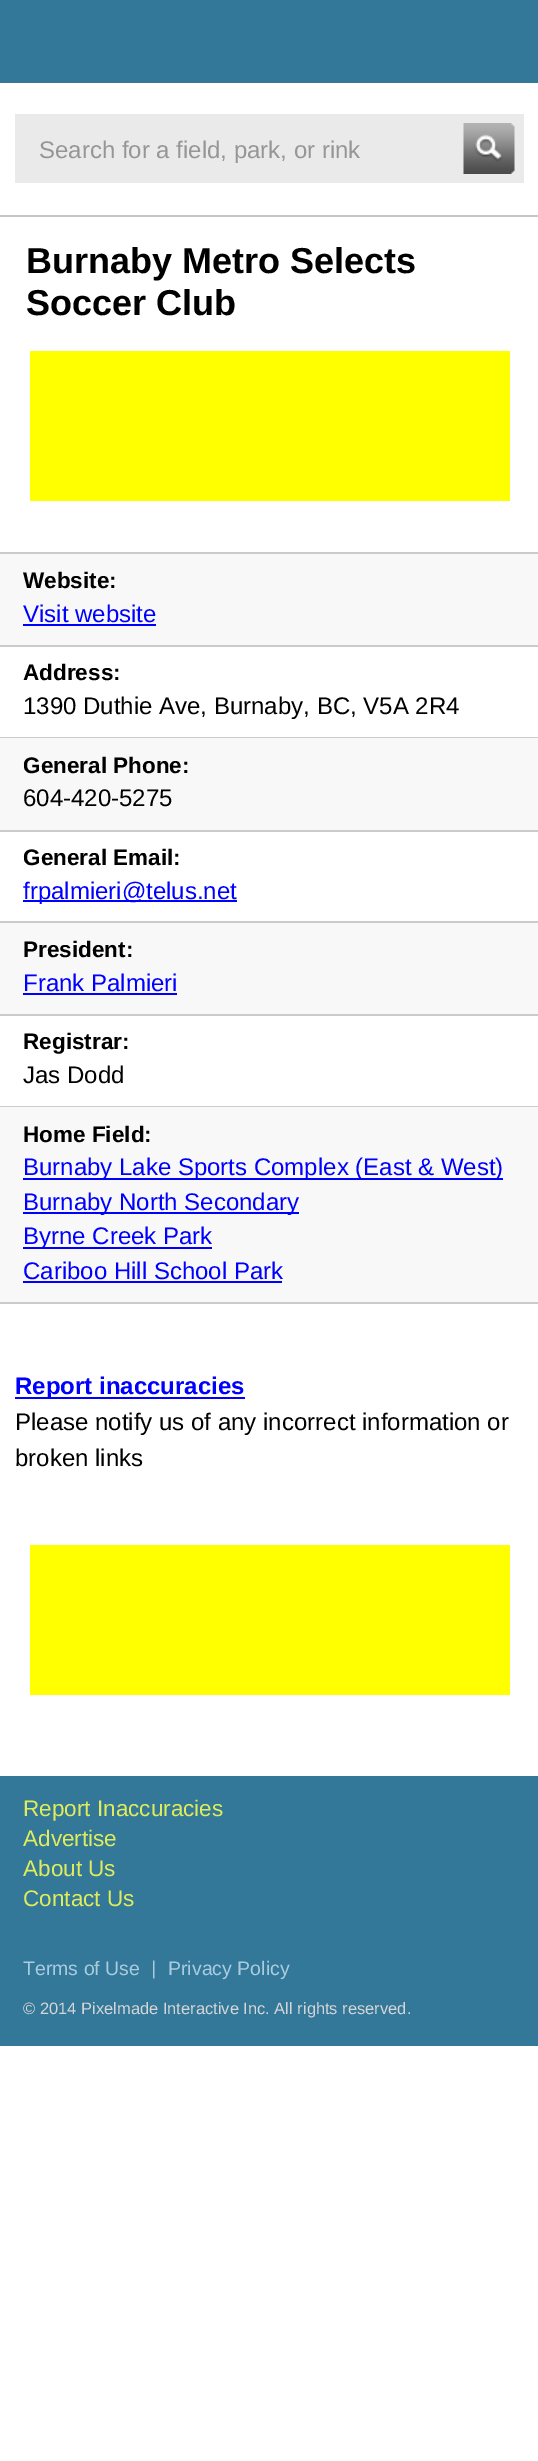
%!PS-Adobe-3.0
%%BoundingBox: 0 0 538 2461
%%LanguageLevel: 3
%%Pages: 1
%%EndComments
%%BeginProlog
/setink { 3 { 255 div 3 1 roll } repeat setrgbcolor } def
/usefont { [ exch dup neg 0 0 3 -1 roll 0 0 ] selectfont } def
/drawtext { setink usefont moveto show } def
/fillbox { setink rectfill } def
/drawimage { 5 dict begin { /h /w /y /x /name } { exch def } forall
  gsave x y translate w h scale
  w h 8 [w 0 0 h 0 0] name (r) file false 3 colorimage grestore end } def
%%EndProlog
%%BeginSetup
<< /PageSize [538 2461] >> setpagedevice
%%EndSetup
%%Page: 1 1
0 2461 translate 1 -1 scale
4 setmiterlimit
0 0 538 2461 255 255 255 fillbox
0 0 538 83 51 119 153 fillbox
0 215 538 2 198 198 198 fillbox
15 114 509 69 234 234 234 fillbox
(Search for a field, park, or rink) 39 158 /LiberationSans-Regular 24 150 150 150 drawtext
(assets/img1.rgb) 463 123 52 51 drawimage
30 1545 480 150 255 255 0 fillbox
(Burnaby Metro Selects) 26 273 /LiberationSans-Bold 36 0 0 0 drawtext
(Soccer Club) 26 315 /LiberationSans-Bold 36 0 0 0 drawtext
30 351 480 150 255 255 0 fillbox
0 552 538 2 203 203 203 fillbox
0 554 538 91 248 248 248 fillbox
0 645 538 2 203 203 203 fillbox
(Website:) 23 588 /LiberationSans-Bold 22.5 0 0 0 drawtext
(Visit website) 23 622 /LiberationSans-Regular 24 0 0 255 drawtext
23 624 133 2 0 0 255 fillbox
0 737 538 1 203 203 203 fillbox
(Address:) 23 680 /LiberationSans-Bold 22.5 0 0 0 drawtext
(1390 Duthie Ave, Burnaby, BC, V5A 2R4) 23 714 /LiberationSans-Regular 24 0 0 0 drawtext
0 738 538 92 248 248 248 fillbox
0 830 538 2 203 203 203 fillbox
(General Phone:) 23 773 /LiberationSans-Bold 22.5 0 0 0 drawtext
(604-420-5275) 23 806 /LiberationSans-Regular 24 0 0 0 drawtext
0 921 538 2 203 203 203 fillbox
(General Email:) 23 865 /LiberationSans-Bold 22.5 0 0 0 drawtext
23 900 214 2 0 0 255 fillbox
(frpalmieri@telus.net) 23 899 /LiberationSans-Regular 24 0 0 255 drawtext
0 923 538 91 248 248 248 fillbox
0 1014 538 2 203 203 203 fillbox
(President:) 23 957 /LiberationSans-Bold 22.5 0 0 0 drawtext
(Frank Palmieri) 23 991 /LiberationSans-Regular 24 0 0 255 drawtext
23 993 154 2 0 0 255 fillbox
0 1106 538 1 203 203 203 fillbox
(Registrar:) 23 1049 /LiberationSans-Bold 22.5 0 0 0 drawtext
(Jas Dodd) 23 1083 /LiberationSans-Regular 24 0 0 0 drawtext
0 1107 538 195 248 248 248 fillbox
0 1302 538 2 203 203 203 fillbox
(Home Field:) 23 1142 /LiberationSans-Bold 22.5 0 0 0 drawtext
23 1178 480 2 0 0 255 fillbox
(Burnaby Lake Sports Complex \(East & West\)) 23 1175 /LiberationSans-Regular 24 0 0 255 drawtext
23 1212 276 2 0 0 255 fillbox
(Burnaby North Secondary) 23 1210 /LiberationSans-Regular 24 0 0 255 drawtext
23 1247 189 2 0 0 255 fillbox
(Byrne Creek Park) 23 1244 /LiberationSans-Regular 24 0 0 255 drawtext
(Cariboo Hill School Park) 23 1279 /LiberationSans-Regular 24 0 0 255 drawtext
23 1281 259 2 0 0 255 fillbox
15 1397 230 2 0 0 255 fillbox
(Report inaccuracies) 15 1394 /LiberationSans-Bold 24 0 0 255 drawtext
(Please notify us of any incorrect information or) 15 1430 /LiberationSans-Regular 24 0 0 0 drawtext
(broken links) 15 1466 /LiberationSans-Regular 24 0 0 0 drawtext
0 1776 538 270 51 119 153 fillbox
(Report Inaccuracies) 23 1816 /LiberationSans-Regular 22.5 223 236 91 drawtext
(Advertise) 23 1846 /LiberationSans-Regular 22.5 223 236 91 drawtext
(About Us) 23 1876 /LiberationSans-Regular 22.5 223 236 91 drawtext
(Contact Us) 23 1906 /LiberationSans-Regular 22.5 223 236 91 drawtext
(Terms of Use) 23 1975 /LiberationSans-Regular 19.5 170 204 222 drawtext
(assets/img2.rgb) 153 1960 2 19 drawimage
(Privacy Policy) 168 1975 /LiberationSans-Regular 19.5 170 204 222 drawtext
(© 2014 Pixelmade Interactive Inc. All rights reserved.) 23 2014 /LiberationSans-Regular 16.5 214 214 214 drawtext
showpage
%%EOF
